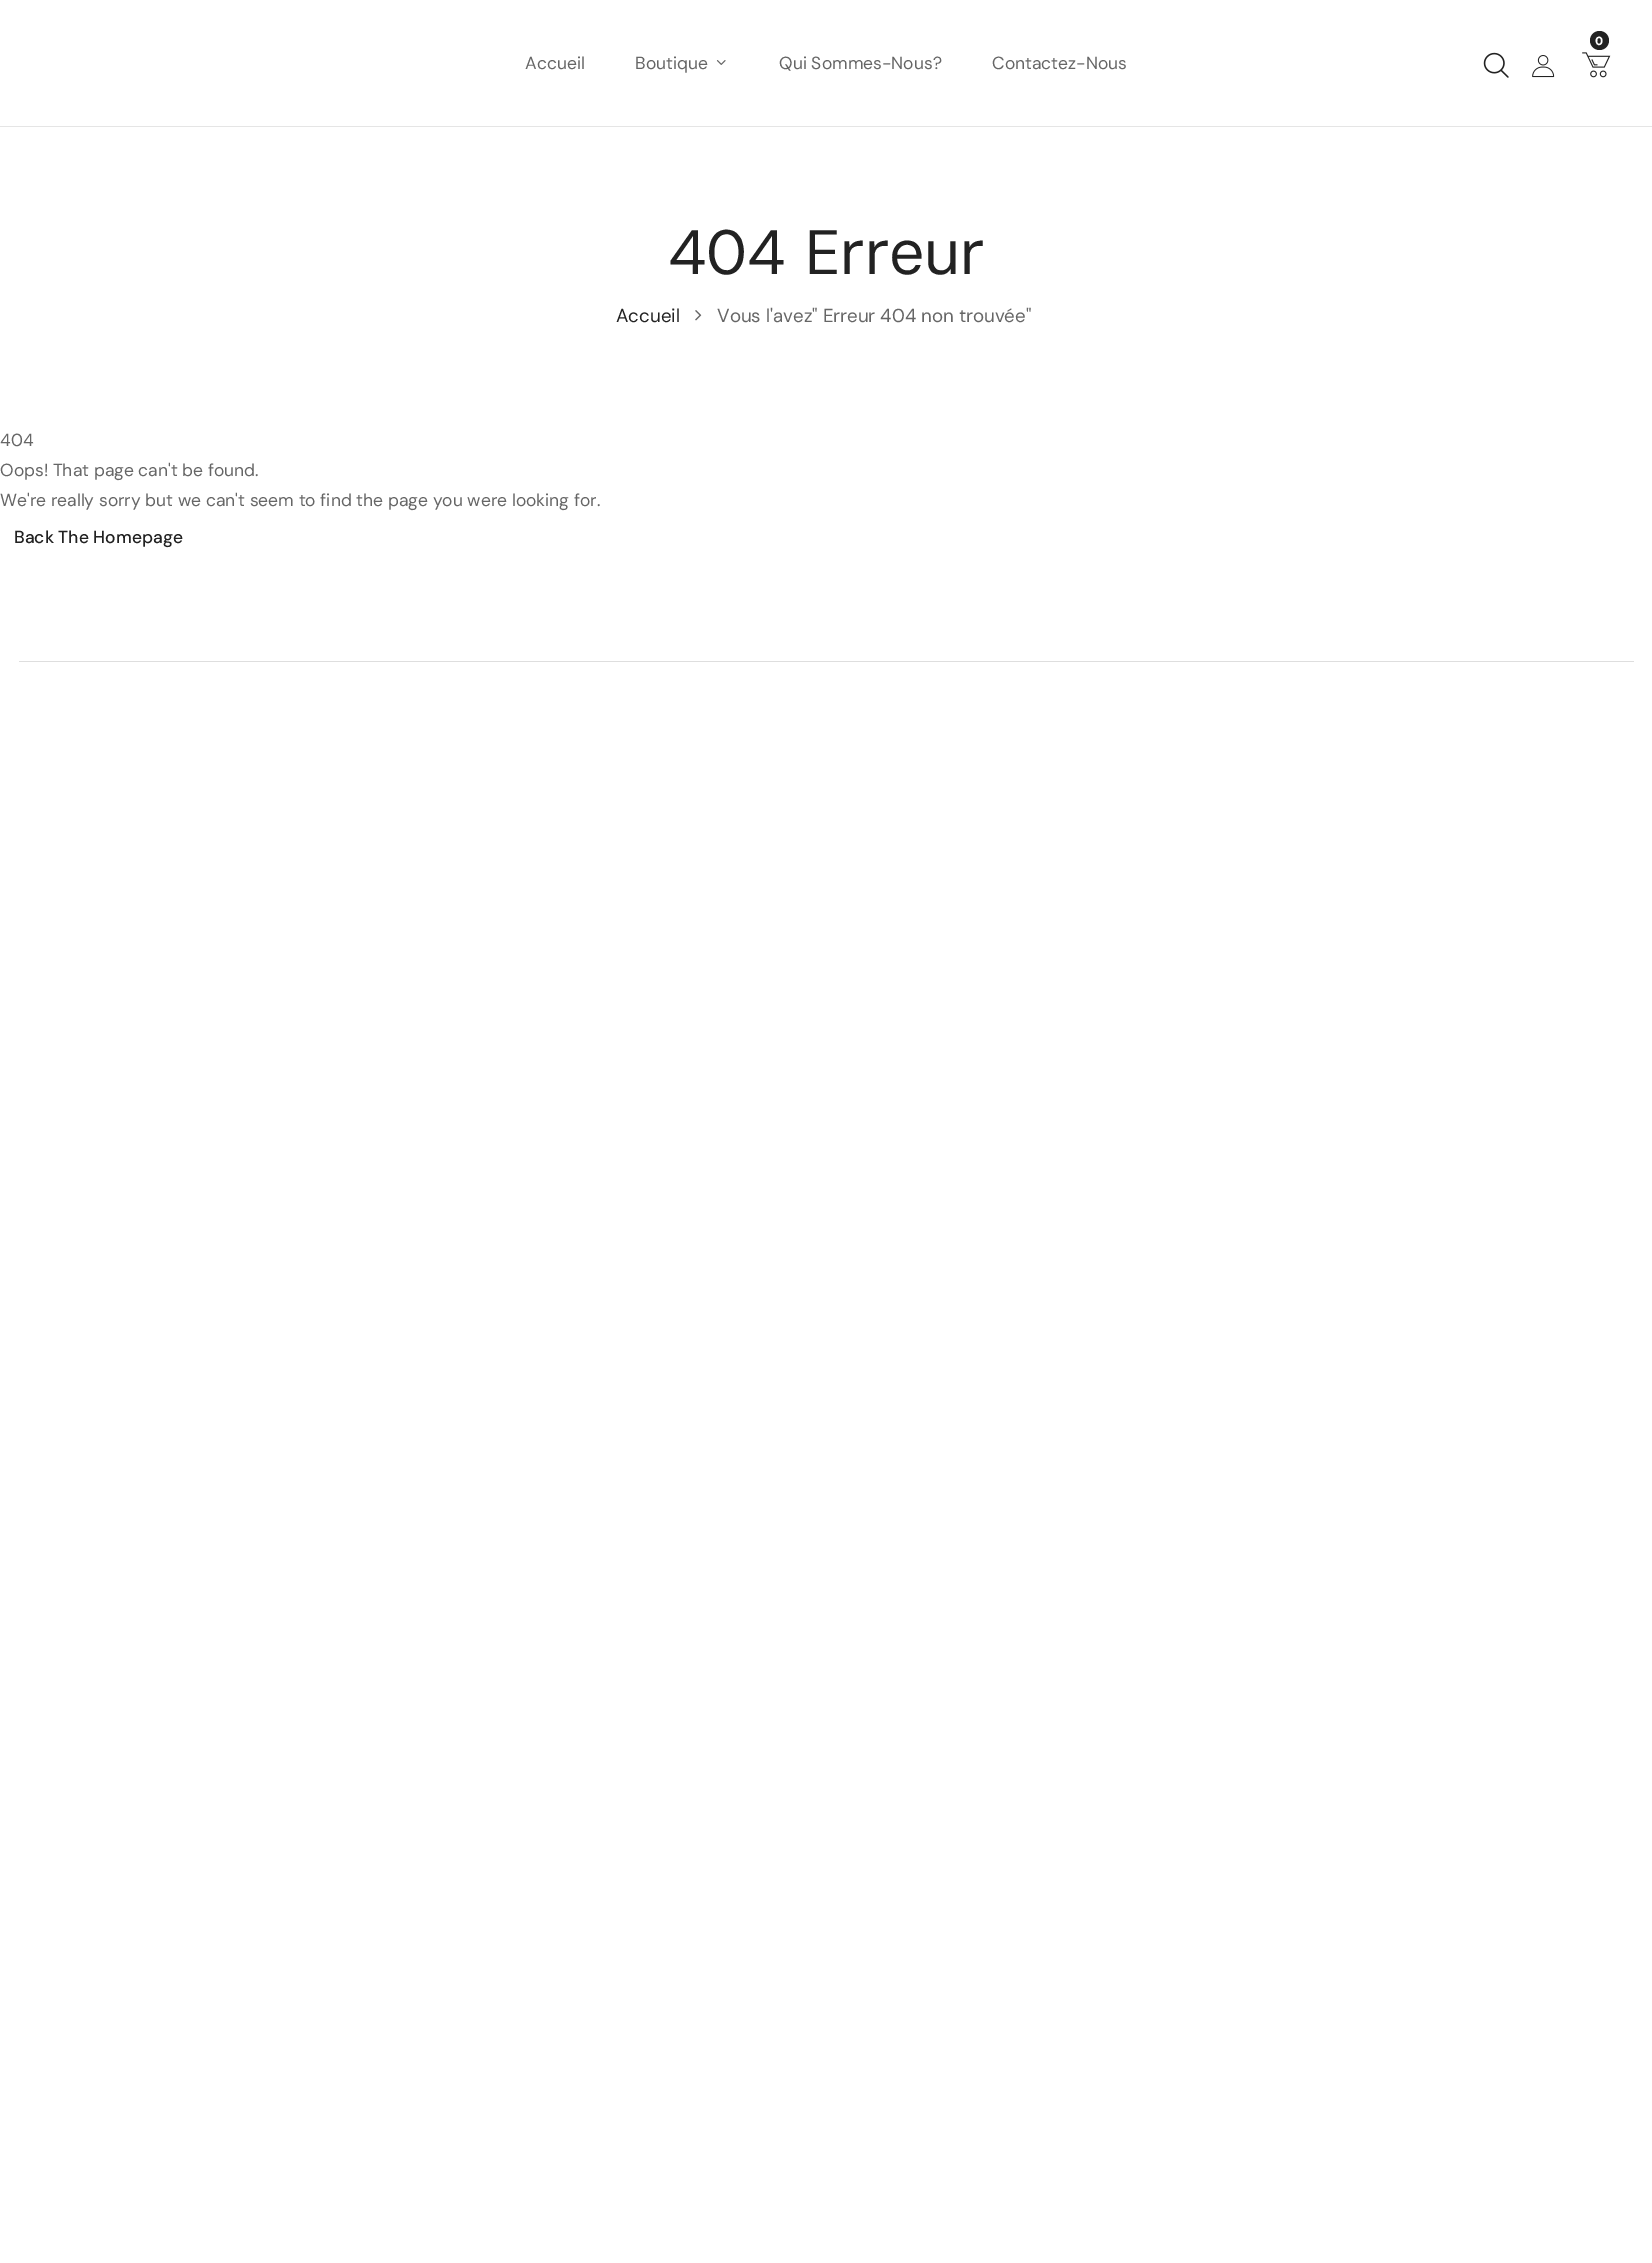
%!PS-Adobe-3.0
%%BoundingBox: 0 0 1652 2263
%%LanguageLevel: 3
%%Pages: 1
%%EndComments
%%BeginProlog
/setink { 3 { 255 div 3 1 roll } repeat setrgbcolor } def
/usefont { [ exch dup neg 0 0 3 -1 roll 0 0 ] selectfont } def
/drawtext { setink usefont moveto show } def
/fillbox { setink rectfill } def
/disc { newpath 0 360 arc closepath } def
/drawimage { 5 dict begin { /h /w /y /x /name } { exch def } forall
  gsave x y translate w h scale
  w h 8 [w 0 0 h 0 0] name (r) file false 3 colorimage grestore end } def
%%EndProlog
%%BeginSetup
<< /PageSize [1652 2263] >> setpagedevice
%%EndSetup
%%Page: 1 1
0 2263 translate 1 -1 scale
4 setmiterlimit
0 0 1652 2263 255 255 255 fillbox
0 126 1652 1 229 229 229 fillbox
34 34 34 setink
1599.5 40.5 9.5 disc fill
(0) 1595 45 /DMSans-Black 12 255 255 255 drawtext
(assets/img1.rgb) 1582 52 29 26 drawimage
(assets/img2.rgb) 1483 52 26 26 drawimage
(assets/img3.rgb) 1532 55 23 23 drawimage
(Accueil) 525 69 /DMSans-Regular 17.5 102 102 102 drawtext
(Boutique) 635 69 /DMSans-Regular 17.5 102 102 102 drawtext
(assets/img4.rgb) 716 60 10 5 drawimage
(Qui Sommes-Nous?) 779 69 /DMSans-Regular 17.5 102 102 102 drawtext
(Contactez-Nous) 992 69 /DMSans-Regular 17.5 102 102 102 drawtext
/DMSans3-Regular 62.5 usefont
34 34 34 setink
668 274 moveto 2 0 32 (404 Erreur) widthshow
(Accueil) 616 322 /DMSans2-Regular 18.75 34 34 34 drawtext
(assets/img5.rgb) 695 310 7 11 drawimage
(Vous l'avez" Erreur 404 non trouvée") 717 322 /DMSans2-Regular 18.75 102 102 102 drawtext
(404) 0 446 /DMSans-Regular 17.5 102 102 102 drawtext
(Oops! That page can't be found.) 0 476 /DMSans-Regular 17.5 102 102 102 drawtext
(We're really sorry but we can't seem to find the page you were looking for.) 0 506 /DMSans-Regular 17.5 102 102 102 drawtext
(Back The Homepage) 14 543 /DMSans-Medium 17.5 34 34 34 drawtext
19 661 1615 1 222 222 222 fillbox
showpage
%%EOF
